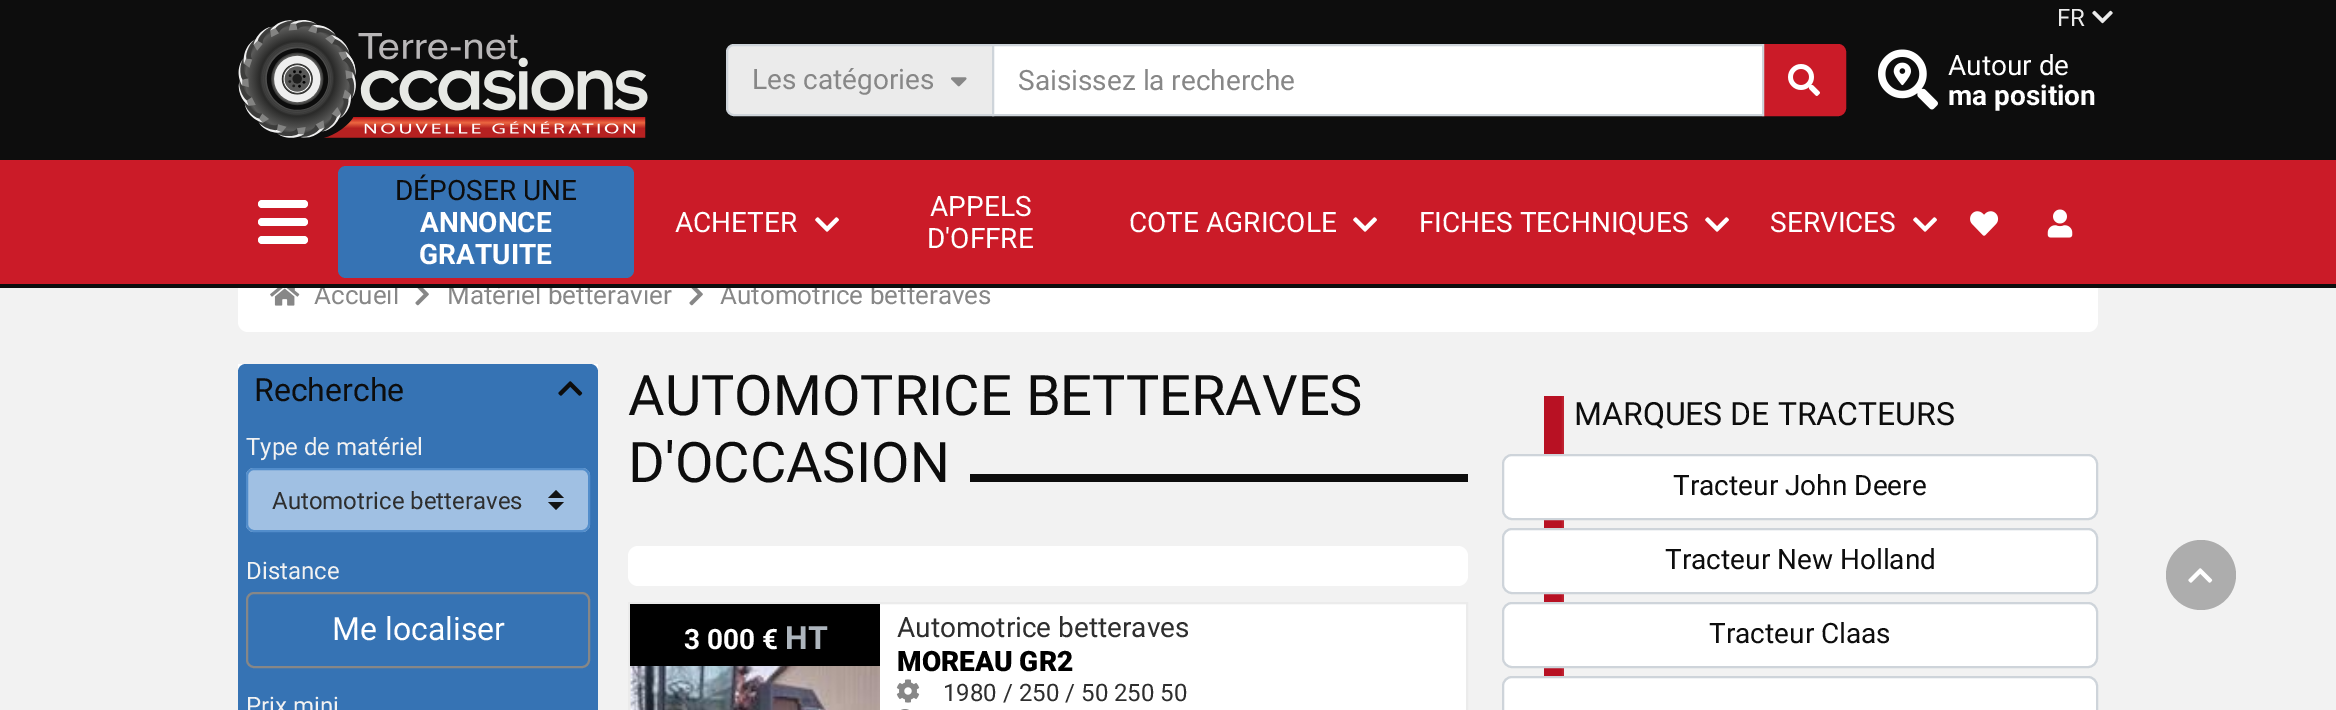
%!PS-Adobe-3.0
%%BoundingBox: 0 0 2336 710
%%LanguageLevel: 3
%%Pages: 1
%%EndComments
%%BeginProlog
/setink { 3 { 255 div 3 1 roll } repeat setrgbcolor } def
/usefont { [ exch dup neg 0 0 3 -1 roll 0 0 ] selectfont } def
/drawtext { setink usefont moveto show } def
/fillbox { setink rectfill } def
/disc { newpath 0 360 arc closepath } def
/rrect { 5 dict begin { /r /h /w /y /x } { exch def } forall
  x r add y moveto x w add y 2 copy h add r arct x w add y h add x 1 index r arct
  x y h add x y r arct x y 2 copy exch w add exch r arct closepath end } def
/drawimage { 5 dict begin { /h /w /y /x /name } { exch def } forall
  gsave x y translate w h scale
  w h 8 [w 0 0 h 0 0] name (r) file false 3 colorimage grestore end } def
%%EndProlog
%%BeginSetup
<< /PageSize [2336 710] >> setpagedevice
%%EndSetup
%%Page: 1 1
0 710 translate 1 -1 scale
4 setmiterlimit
0 0 2336 710 242 242 242 fillbox
0 0 2336 160 13 13 13 fillbox
(FR) 2057 26 /Roboto-Regular 24 235 235 235 drawtext
(assets/img1.rgb) 2092 10 21 14 drawimage
(assets/img2.rgb) 238 20 410 118 drawimage
734 45 moveto 993 45 lineto 993 115 lineto 734 115 lineto 730 115 727 112 727 108 curveto 727 52 lineto 727 48 730 45 734 45 curveto closepath gsave fill grestore
206 212 218 setink
2 setlinewidth
stroke
(Les catégories) 752 89 /Roboto-Regular 28 135 135 135 drawtext
(assets/img3.rgb) 951 77 16 10 drawimage
203 27 40 setink
1763 45 moveto 1838 45 lineto 1842 45 1845 48 1845 52 curveto 1845 108 lineto 1845 112 1842 115 1838 115 curveto 1763 115 lineto closepath gsave fill grestore
stroke
255 255 255 setink
993 45 moveto 1763 45 lineto 1763 115 lineto 993 115 lineto closepath gsave fill grestore
206 212 218 setink
stroke
(Saisissez la recherche) 1018 90 /Roboto-Regular 28 135 135 135 drawtext
(assets/img4.rgb) 1788 64 32 32 drawimage
(assets/img5.rgb) 1878 49 60 61 drawimage
(Autour de) 1948 75 /Roboto-Regular 28 255 255 255 drawtext
(ma position) 1948 105 /Roboto-Bold 28 255 255 255 drawtext
238 260 1860 72 10 rrect fill
0 160 2336 124 203 27 40 fillbox
(Accueil) 314 304 /Roboto-Regular 26 135 135 135 drawtext
(Matériel betteravier) 447 304 /Roboto-Regular 26 135 135 135 drawtext
(Automotrice betteraves) 720 304 /Roboto-Regular 26 135 135 135 drawtext
0 284 2336 4 13 13 13 fillbox
255 255 255 setink
258 200 50 8 4 rrect fill
258 218 50 8 4 rrect fill
258 236 50 8 4 rrect fill
54 115 180 setink
338 166 296 112 8 rrect fill
(DÉPOSER UNE) 395 200 /Roboto-Regular 28 13 13 13 drawtext
(ANNONCE) 420 232 /Roboto-Bold 28 255 255 255 drawtext
(GRATUITE) 419 264 /Roboto-Bold 28 255 255 255 drawtext
(ACHETER) 675 232 /Roboto-Regular 28 255 255 255 drawtext
(assets/img6.rgb) 815 217 24 15 drawimage
(APPELS) 930 216 /Roboto-Regular 28 255 255 255 drawtext
(D'OFFRE) 927 248 /Roboto-Regular 28 255 255 255 drawtext
(COTE AGRICOLE) 1129 232 /Roboto-Regular 28 255 255 255 drawtext
(assets/img6.rgb) 1353 217 24 15 drawimage
(FICHES TECHNIQUES) 1419 232 /Roboto-Regular 28 255 255 255 drawtext
(assets/img6.rgb) 1705 217 24 15 drawimage
(SERVICES) 1770 232 /Roboto-Regular 28 255 255 255 drawtext
(assets/img6.rgb) 1913 217 24 15 drawimage
(assets/img7.rgb) 1970 211 29 25 drawimage
(assets/img8.rgb) 2047 209 26 29 drawimage
173 173 173 setink
2201 575 35 disc fill
(assets/img9.rgb) 2188 568 25 15 drawimage
(assets/img10.rgb) 270 288 30 18 drawimage
(assets/img11.rgb) 415 288 14 18 drawimage
(assets/img11.rgb) 689 288 14 18 drawimage
238 364 360 8 255 255 255 fillbox
54 115 180 setink
246 364 moveto 590 364 lineto 594.5 364 598 367.5 598 372 curveto 598 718 lineto 238 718 lineto 238 372 lineto 238 367.5 241.5 364 246 364 curveto closepath fill
(Recherche) 254 401 /Roboto-Regular 32 13 13 13 drawtext
(assets/img12.rgb) 558 381 25 15 drawimage
(Type de matériel) 246 455 /Roboto-Regular 24 242 242 242 drawtext
160 192 227 setink
246 468 344 64 8 rrect fill
19 19 19 setink
556 490 moveto 548 498 lineto 564 498 lineto closepath 556 510 moveto 548 502 lineto 564 502 lineto closepath fill
82 141 203 setink
247 469 342 62 7 rrect stroke
(Automotrice betteraves) 272 509 /Roboto-Regular 24 46 46 46 drawtext
(Distance) 246 579 /Roboto-Regular 24 242 242 242 drawtext
135 135 135 setink
247 593 342 74 7 rrect stroke
(Me localiser) 332 640 /Roboto-Regular 32 255 255 255 drawtext
(Prix mini) 246 714 /Roboto-Regular 24 242 242 242 drawtext
(AUTOMOTRICE BETTERAVES) 628 415 /Roboto-Regular 56 13 13 13 drawtext
(D'OCCASION) 628 482 /Roboto-Regular 56 13 13 13 drawtext
970 474 498 8 13 13 13 fillbox
255 255 255 setink
628 546 840 40 10 rrect fill
880 604 586 106 255 255 255 fillbox
235 235 235 setink
629 603 838 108 rectstroke
630 604 250 62 0 0 0 fillbox
(3 000 €) 684 649 /Roboto-Bold 28 255 255 255 drawtext
(HT) 785 649 /Roboto-Bold 32 173 181 189 drawtext
630 666 1 44 235 235 235 fillbox
(assets/img13.rgb) 630 666 250 44 drawimage
(Automotrice betteraves) 897 637 /Roboto-Regular 28 46 46 46 drawtext
(MOREAU GR2) 897 671 /Roboto-Black 28 0 0 0 drawtext
(assets/img14.rgb) 896 679 24 24 drawimage
(1980 / 250 / 50 250 50) 943 701 /Roboto-Regular 24 46 46 46 drawtext
(assets/img15.rgb) 901 709 8 1 drawimage
(assets/img16.rgb) 1544 396 20 280 drawimage
(MARQUES DE TRACTEURS) 1574 425 /Roboto-Regular 32 13 13 13 drawtext
255 255 255 setink
1503 455 594 64 9 rrect gsave fill grestore
206 212 218 setink
stroke
(Tracteur John Deere) 1673 495 /Roboto-Regular 28 13 13 13 drawtext
255 255 255 setink
1503 529 594 64 9 rrect gsave fill grestore
206 212 218 setink
stroke
(Tracteur New Holland) 1665 569 /Roboto-Regular 28 13 13 13 drawtext
255 255 255 setink
1503 603 594 64 9 rrect gsave fill grestore
206 212 218 setink
stroke
(Tracteur Claas) 1709 643 /Roboto-Regular 28 13 13 13 drawtext
255 255 255 setink
1503 677 594 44 9 rrect gsave fill grestore
206 212 218 setink
stroke
showpage
%%EOF
